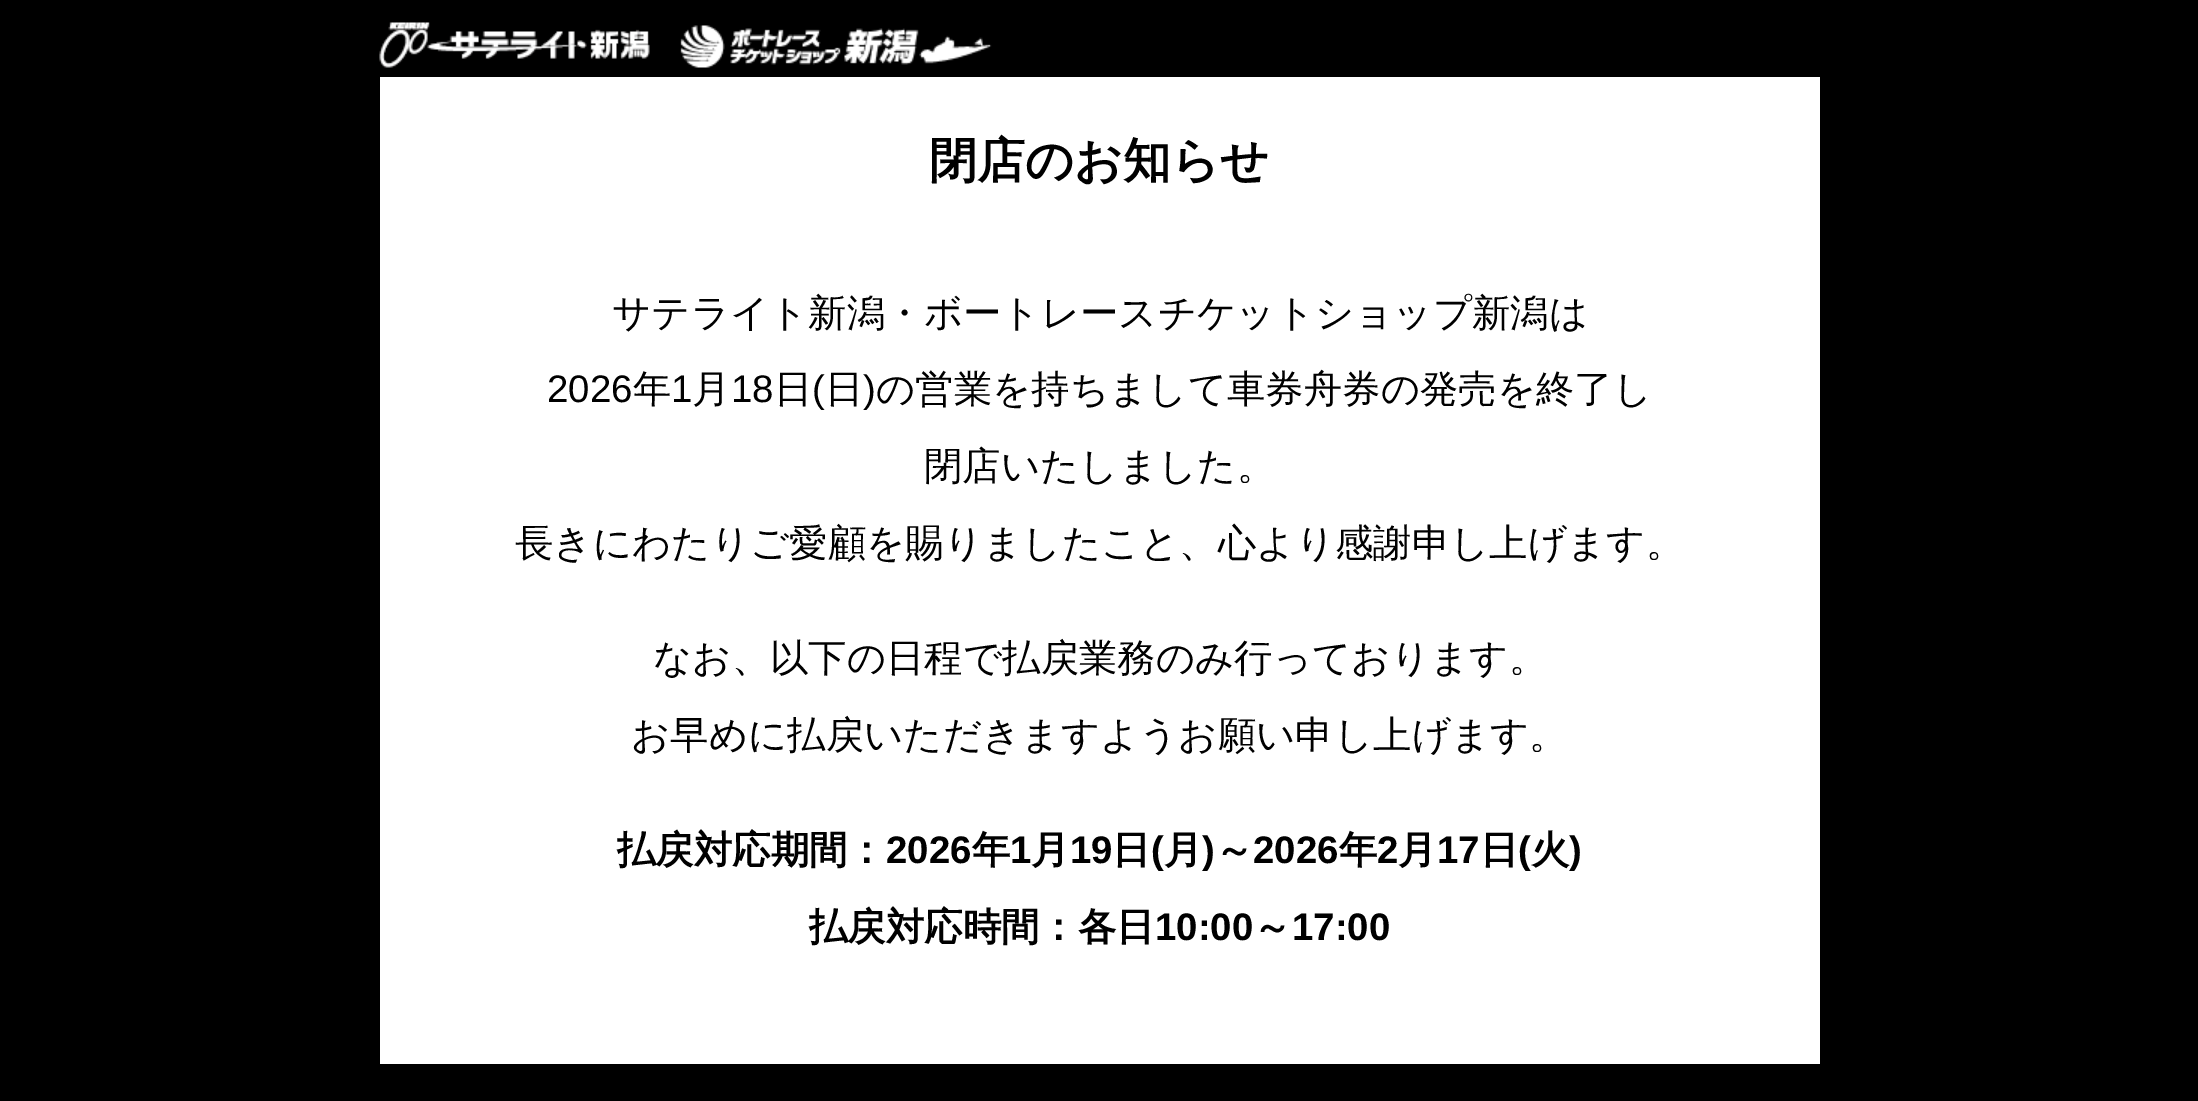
%!PS-Adobe-3.0
%%BoundingBox: 0 0 2198 1101
%%LanguageLevel: 3
%%Pages: 1
%%EndComments
%%BeginProlog
/setink { 3 { 255 div 3 1 roll } repeat setrgbcolor } def
/usefont { [ exch dup neg 0 0 3 -1 roll 0 0 ] selectfont } def
/drawtext { setink usefont moveto show } def
/fillbox { setink rectfill } def
/drawimage { 5 dict begin { /h /w /y /x /name } { exch def } forall
  gsave x y translate w h scale
  w h 8 [w 0 0 h 0 0] name (r) file false 3 colorimage grestore end } def
%%EndProlog
%%BeginSetup
<< /PageSize [2198 1101] >> setpagedevice
%%EndSetup
%%Page: 1 1
0 1101 translate 1 -1 scale
4 setmiterlimit
0 0 2198 1101 0 0 0 fillbox
(assets/img1.rgb) 379 22 271 46 drawimage
(assets/img2.rgb) 680 25 312 43 drawimage
380 77 1440 987 255 255 255 fillbox
(閉店のお知らせ) 929 177 /WenQuanYiZenHei-Bold 48 0 0 0 drawtext
(サテライト新潟・ボートレースチケットショップ新潟は) 612 326 /WenQuanYiZenHei-Medium 38.4 0 0 0 drawtext
(2026) 547 402 /LiberationSans-Regular 38.4 0 0 0 drawtext
(年) 633 402 /WenQuanYiZenHei-Medium 38.4 0 0 0 drawtext
(1) 671 402 /LiberationSans-Regular 38.4 0 0 0 drawtext
(月) 692 402 /WenQuanYiZenHei-Medium 38.4 0 0 0 drawtext
(18) 731 402 /LiberationSans-Regular 38.4 0 0 0 drawtext
(日) 774 402 /WenQuanYiZenHei-Medium 38.4 0 0 0 drawtext
(\() 812 402 /LiberationSans-Regular 38.4 0 0 0 drawtext
(日) 825 402 /WenQuanYiZenHei-Medium 38.4 0 0 0 drawtext
(\)) 863 402 /LiberationSans-Regular 38.4 0 0 0 drawtext
(の営業を持ちまして車券舟券の発売を終了し) 876 402 /WenQuanYiZenHei-Medium 38.4 0 0 0 drawtext
(閉店いたしました。) 924 479 /WenQuanYiZenHei-Medium 38.4 0 0 0 drawtext
(長きにわたりご愛顧を賜りましたこと、心より感謝申し上げます。) 515 556 /WenQuanYiZenHei-Medium 38.4 0 0 0 drawtext
(なお、以下の日程で払戻業務のみ行っております。) 653 671 /WenQuanYiZenHei-Medium 38.4 0 0 0 drawtext
(お早めに払戻いただきますようお願い申し上げます。) 631 748 /WenQuanYiZenHei-Medium 38.4 0 0 0 drawtext
(払戻対応期間：) 617 863 /WenQuanYiZenHei-Bold 38.4 0 0 0 drawtext
(2026) 886 863 /LiberationSans-Bold 38.4 0 0 0 drawtext
(年) 972 863 /WenQuanYiZenHei-Bold 38.4 0 0 0 drawtext
(1) 1010 863 /LiberationSans-Bold 38.4 0 0 0 drawtext
(月) 1031 863 /WenQuanYiZenHei-Bold 38.4 0 0 0 drawtext
(19) 1070 863 /LiberationSans-Bold 38.4 0 0 0 drawtext
(日) 1112 863 /WenQuanYiZenHei-Bold 38.4 0 0 0 drawtext
(\() 1151 863 /LiberationSans-Bold 38.4 0 0 0 drawtext
(月) 1164 863 /WenQuanYiZenHei-Bold 38.4 0 0 0 drawtext
(\)) 1202 863 /LiberationSans-Bold 38.4 0 0 0 drawtext
(～) 1215 863 /WenQuanYiZenHei-Bold 38.4 0 0 0 drawtext
(2026) 1253 863 /LiberationSans-Bold 38.4 0 0 0 drawtext
(年) 1339 863 /WenQuanYiZenHei-Bold 38.4 0 0 0 drawtext
(2) 1377 863 /LiberationSans-Bold 38.4 0 0 0 drawtext
(月) 1398 863 /WenQuanYiZenHei-Bold 38.4 0 0 0 drawtext
(17) 1437 863 /LiberationSans-Bold 38.4 0 0 0 drawtext
(日) 1480 863 /WenQuanYiZenHei-Bold 38.4 0 0 0 drawtext
(\() 1518 863 /LiberationSans-Bold 38.4 0 0 0 drawtext
(火) 1531 863 /WenQuanYiZenHei-Bold 38.4 0 0 0 drawtext
(\)) 1569 863 /LiberationSans-Bold 38.4 0 0 0 drawtext
(払戻対応時間：各日) 809 940 /WenQuanYiZenHei-Bold 38.4 0 0 0 drawtext
(10:00) 1155 940 /LiberationSans-Bold 38.4 0 0 0 drawtext
(～) 1253 940 /WenQuanYiZenHei-Bold 38.4 0 0 0 drawtext
(17:00) 1292 940 /LiberationSans-Bold 38.4 0 0 0 drawtext
showpage
%%EOF
